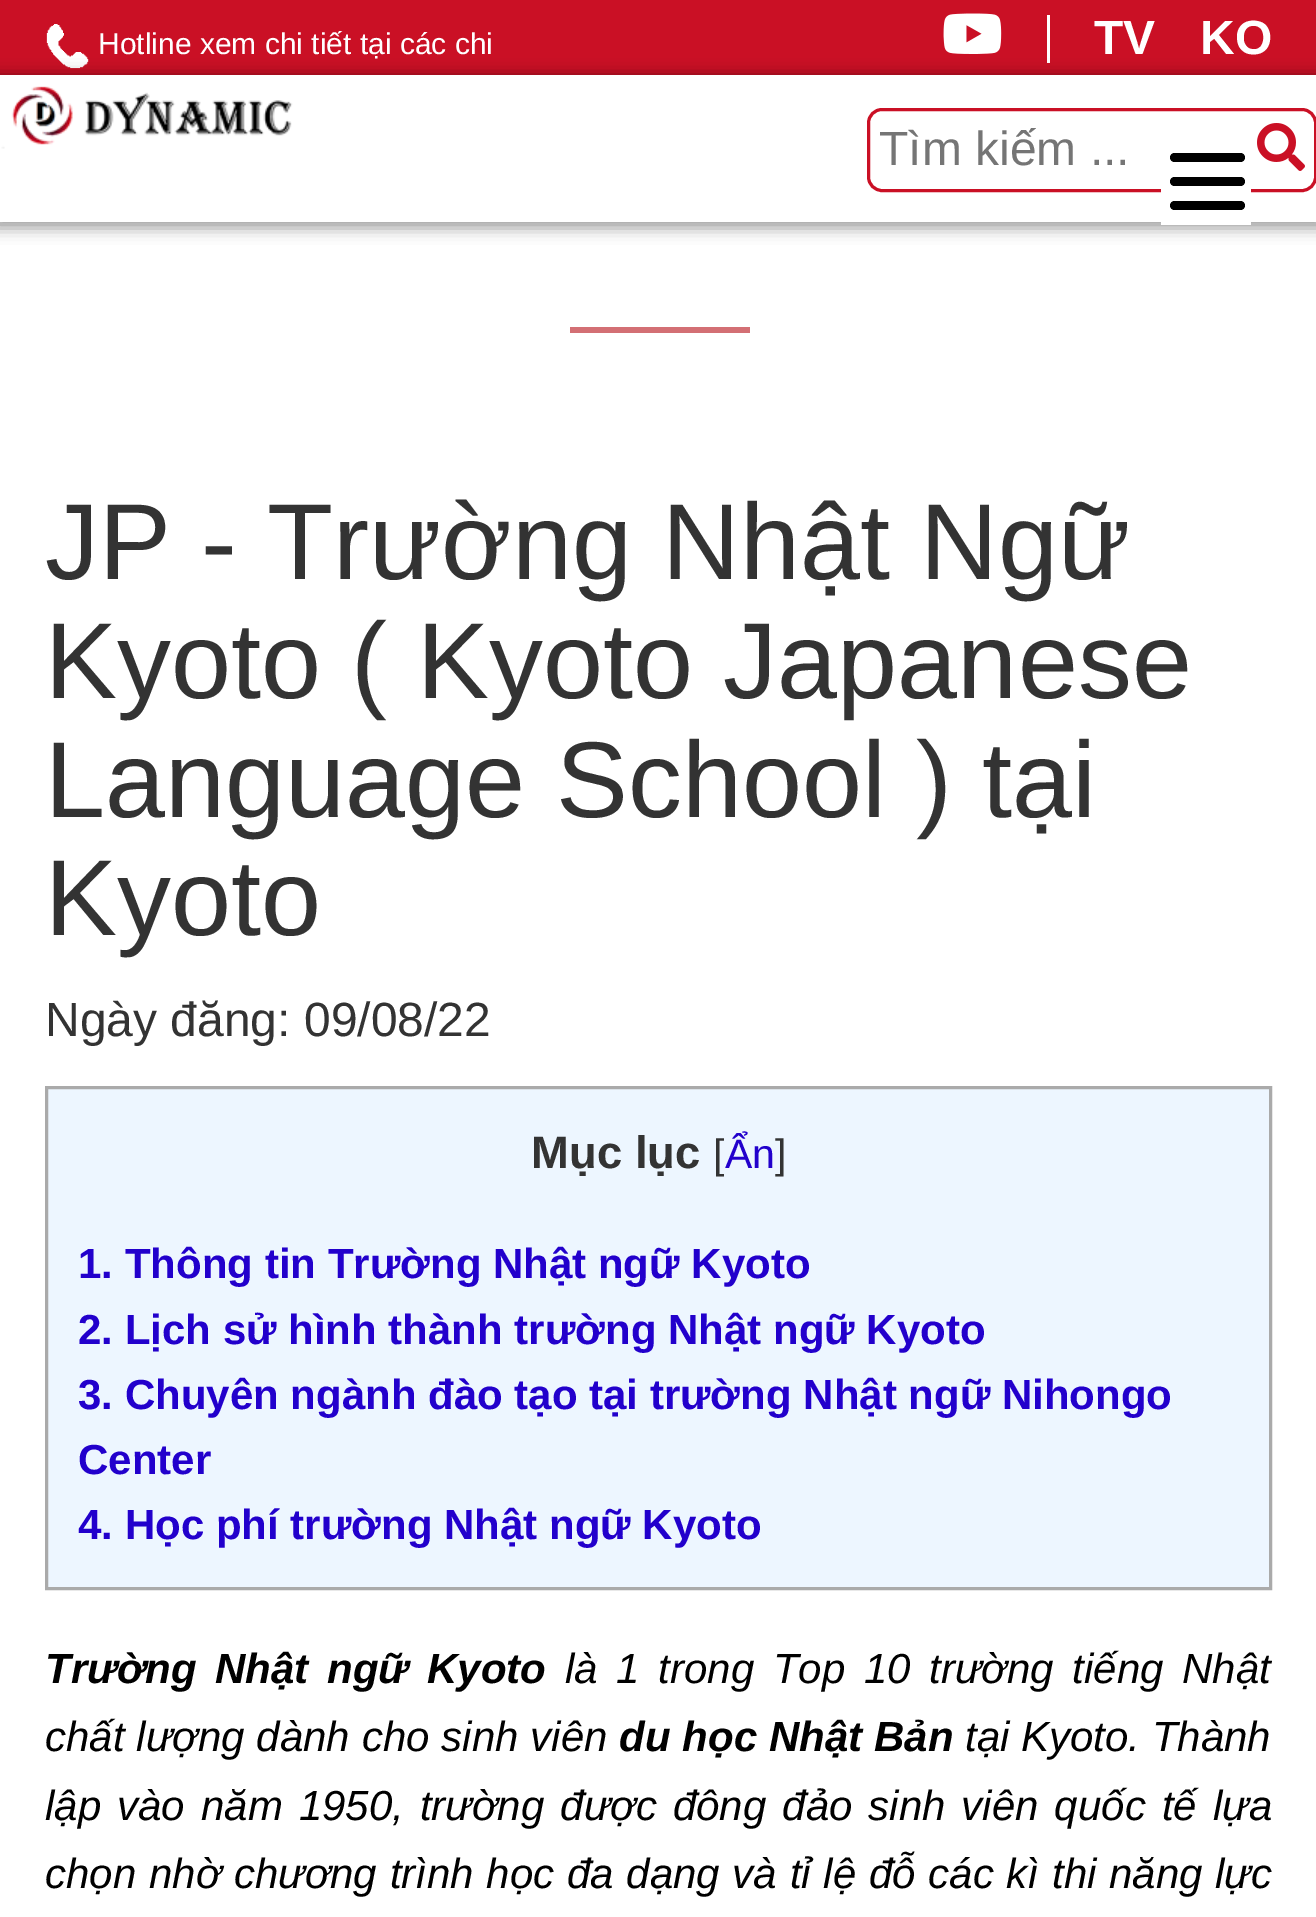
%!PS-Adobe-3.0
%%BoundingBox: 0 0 1316 1917
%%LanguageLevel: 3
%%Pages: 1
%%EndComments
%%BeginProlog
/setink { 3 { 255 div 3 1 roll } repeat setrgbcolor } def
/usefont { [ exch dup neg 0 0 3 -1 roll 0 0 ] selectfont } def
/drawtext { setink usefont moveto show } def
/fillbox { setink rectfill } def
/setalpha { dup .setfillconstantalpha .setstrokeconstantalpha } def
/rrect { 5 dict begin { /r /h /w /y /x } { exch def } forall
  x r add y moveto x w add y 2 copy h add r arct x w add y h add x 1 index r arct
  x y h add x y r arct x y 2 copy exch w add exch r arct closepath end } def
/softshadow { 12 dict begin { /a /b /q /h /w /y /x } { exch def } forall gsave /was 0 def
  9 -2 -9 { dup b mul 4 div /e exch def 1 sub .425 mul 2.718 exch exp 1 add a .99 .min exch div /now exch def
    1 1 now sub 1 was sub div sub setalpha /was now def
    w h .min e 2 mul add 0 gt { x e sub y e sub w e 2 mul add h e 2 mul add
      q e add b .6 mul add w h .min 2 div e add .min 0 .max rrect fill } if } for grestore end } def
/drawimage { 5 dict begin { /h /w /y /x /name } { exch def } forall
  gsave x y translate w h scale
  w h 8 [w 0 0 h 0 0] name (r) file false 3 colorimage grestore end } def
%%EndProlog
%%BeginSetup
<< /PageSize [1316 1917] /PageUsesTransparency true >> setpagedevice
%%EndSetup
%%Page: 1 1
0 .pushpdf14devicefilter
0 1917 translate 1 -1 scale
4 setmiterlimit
0 0 1316 1917 255 255 255 fillbox
0 0 1316 75 202 16 37 fillbox
(assets/img1.rgb) 46 24 43 45 drawimage
(Hotline xem chi tiết tại các chi) 98 54 /LiberationSans-Regular 30 255 255 255 drawtext
(assets/img2.rgb) 943 13 59 41 drawimage
1047 15 3 48 255 255 255 fillbox
(TV) 1094 54 /LiberationSans-Bold 48 255 255 255 drawtext
(KO) 1200 54 /LiberationSans-Bold 48 255 255 255 drawtext
gsave
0 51 moveto 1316 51 lineto 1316 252 lineto 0 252 lineto closepath 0 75 moveto 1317 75 lineto 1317 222 lineto 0 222 lineto closepath eoclip newpath
0 0 0 setink
-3 75 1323 153 0 7.5 0.39 softshadow
grestore
(assets/img3.rgb) 1 86 292 63 drawimage
202 16 37 setink
3 setlinewidth
868.5 109.5 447 81 13.5 rrect stroke
(Tìm kiếm ...) 879 165 /LiberationSans-Regular 48 117 117 117 drawtext
(assets/img4.rgb) 1257 123 48 48 drawimage
1161 189 90 36 255 255 255 fillbox
0 0 0 setink
1170 177 75 9 4.5 rrect fill
1170 153 75 9 4.5 rrect fill
1170 201 75 9 4.5 rrect fill
570 327 180 6 211 111 116 fillbox
(JP - Trường Nhật Ngữ) 45 579 /LiberationSans-Regular 108 51 51 51 drawtext
(Kyoto \( Kyoto Japanese) 45 698 /LiberationSans-Regular 108 51 51 51 drawtext
(Language School \) tại) 45 817 /LiberationSans-Regular 108 51 51 51 drawtext
(Kyoto) 45 935 /LiberationSans-Regular 108 51 51 51 drawtext
(Ngày đăng: 09/08/22) 45 1036 /LiberationSans-Regular 48 51 51 51 drawtext
237 246 255 setink
46.5 1087.5 moveto 1270.5 1087.5 lineto 1270.5 1588.5 lineto 46.5 1588.5 lineto closepath gsave fill grestore
170 170 170 setink
stroke
(Mục lục) 531 1168 /LiberationSans-Bold 45.5 51 51 51 drawtext
([) 713 1168 /LiberationSans-Regular 41 51 51 51 drawtext
(Ẩn) 725 1168 /LiberationSans-Regular 41 34 0 204 drawtext
(]) 775 1168 /LiberationSans-Regular 41 51 51 51 drawtext
(1. Thông tin Trường Nhật ngữ Kyoto) 78 1278 /LiberationSans-Bold 42 34 0 204 drawtext
(2. Lịch sử hình thành trường Nhật ngữ Kyoto) 78 1344 /LiberationSans-Bold 42 34 0 204 drawtext
(3. Chuyên ngành đào tạo tại trường Nhật ngữ Nihongo) 78 1409 /LiberationSans-Bold 42 34 0 204 drawtext
(Center) 78 1474 /LiberationSans-Bold 42 34 0 204 drawtext
(4. Học phí trường Nhật ngữ Kyoto) 78 1539 /LiberationSans-Bold 42 34 0 204 drawtext
/LiberationSans-BoldItalic 42 usefont
0 0 0 setink
45 1683 moveto 7 0 32 (Trường Nhật ngữ Kyoto) widthshow
/LiberationSans-Italic 42 usefont
565 1683 moveto 7 0 32 (là 1 trong Top 10 trường tiếng Nhật) widthshow
45 1751 moveto 0.25 0 32 (chất lượng dành cho sinh viên) widthshow
/LiberationSans-BoldItalic 42 usefont
619 1751 moveto 0.25 0 32 (du học Nhật Bản) widthshow
(tại Kyoto. Thành) 965 1751 /LiberationSans-Italic 42 0 0 0 drawtext
45 1820 moveto 4.4 0 32 (lập vào năm 1950, trường được đông đảo sinh viên quốc tế lựa) widthshow
45 1888 moveto 1.1 0 32 (chọn nhờ chương trình học đa dạng và tỉ lệ đỗ các kì thi năng lực) widthshow
.poppdf14devicefilter showpage
%%EOF
